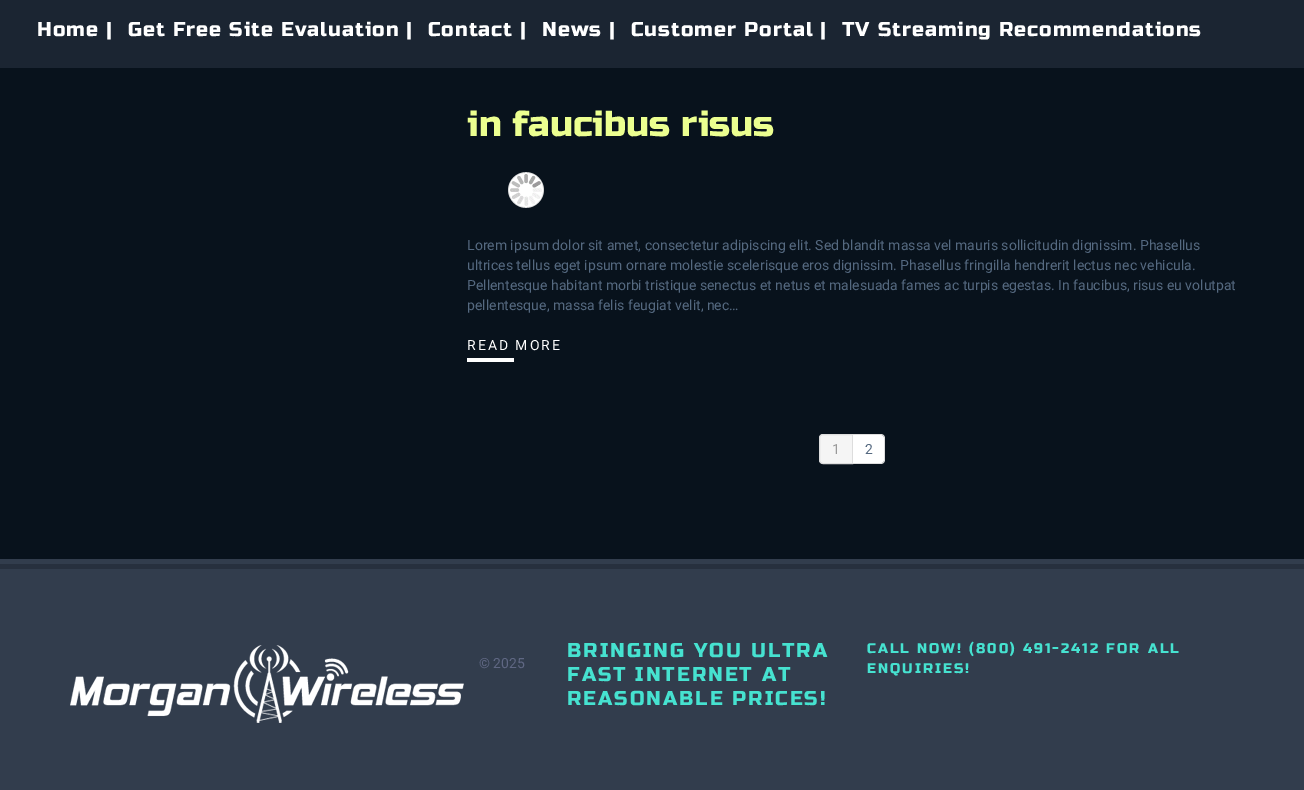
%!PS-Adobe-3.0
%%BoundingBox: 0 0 1304 790
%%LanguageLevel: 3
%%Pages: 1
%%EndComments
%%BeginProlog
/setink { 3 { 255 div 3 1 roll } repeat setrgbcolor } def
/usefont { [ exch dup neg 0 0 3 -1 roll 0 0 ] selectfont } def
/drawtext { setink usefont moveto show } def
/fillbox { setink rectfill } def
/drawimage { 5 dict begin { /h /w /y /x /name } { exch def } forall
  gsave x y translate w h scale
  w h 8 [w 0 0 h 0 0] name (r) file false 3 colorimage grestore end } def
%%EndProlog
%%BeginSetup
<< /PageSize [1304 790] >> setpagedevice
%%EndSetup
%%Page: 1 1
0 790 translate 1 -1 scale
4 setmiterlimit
0 0 1304 790 8 18 28 fillbox
0 0 1304 68 27 37 50 fillbox
/RussoOne-Regular 20 usefont
255 255 255 setink
37 36 moveto 1 0 (Home |) ashow
128 36 moveto 1 0 (Get Free Site Evaluation |) ashow
428 36 moveto 1 0 (Contact |) ashow
542 36 moveto 1 0 (News |) ashow
631 36 moveto 1 0 (Customer Portal |) ashow
842 36 moveto 1 0 (TV Streaming Recommendations) ashow
(in faucibus risus) 467 136 /RussoOne-Regular 36 236 255 144 drawtext
(assets/img1.rgb) 508 172 36 36 drawimage
(Lorem ipsum dolor sit amet, consectetur adipiscing elit. Sed blandit massa vel mauris sollicitudin dignissim. Phasellus) 467 250 /Roboto-Regular 14 85 105 128 drawtext
(ultrices tellus eget ipsum ornare molestie scelerisque eros dignissim. Phasellus fringilla hendrerit lectus nec vehicula.) 467 270 /Roboto-Regular 14 85 105 128 drawtext
(Pellentesque habitant morbi tristique senectus et netus et malesuada fames ac turpis egestas. In faucibus, risus eu volutpat) 467 290 /Roboto-Regular 14 85 105 128 drawtext
(pellentesque, massa felis feugiat velit, nec…) 467 310 /Roboto-Regular 14 85 105 128 drawtext
255 255 255 setink
467 350 moveto 2 0 (READ MORE) ashow
467 358 47 4 255 255 255 fillbox
245 245 245 setink
823 434.5 moveto 852.5 434.5 lineto 852.5 463.5 lineto 823 463.5 lineto 821 463.5 819.5 462 819.5 460 curveto 819.5 438 lineto 819.5 436 821 434.5 823 434.5 curveto closepath gsave fill grestore
221 221 221 setink
stroke
(1) 832 454 /Roboto-Regular 14 153 153 153 drawtext
255 255 255 setink
853 435 moveto 881 435 lineto 882.5 435 884 436.5 884 438 curveto 884 460 lineto 884 461.5 882.5 463 881 463 curveto 853 463 lineto closepath fill
221 221 221 setink
853 434 moveto 881 434 lineto 883 434 885 436 885 438 curveto 885 460 lineto 885 462 883 464 881 464 curveto 853 464 lineto closepath 853 435 moveto 881 435 lineto 882.5 435 884 436.5 884 438 curveto 884 460 lineto 884 461.5 882.5 463 881 463 curveto 853 463 lineto closepath eofill
(2) 865 454 /Roboto-Regular 14 85 105 128 drawtext
0 559 1304 231 50 61 77 fillbox
0 564 1304 5 39 48 62 fillbox
(assets/img2.rgb) 70 645 394 78 drawimage
(© 2025) 479 668 /Roboto-Regular 14 95 103 131 drawtext
/RussoOne-Regular 20 usefont
70 226 208 setink
567 657 moveto 2 0 (BRINGING YOU ULTRA) ashow
567 681 moveto 2 0 (FAST INTERNET AT) ashow
567 705 moveto 2 0 (REASONABLE PRICES!) ashow
/RussoOne-Regular 14 usefont
867 653 moveto 2 0 (CALL NOW! \(800\) 491-2412 FOR ALL) ashow
867 673 moveto 2 0 (ENQUIRIES!) ashow
showpage
%%EOF
